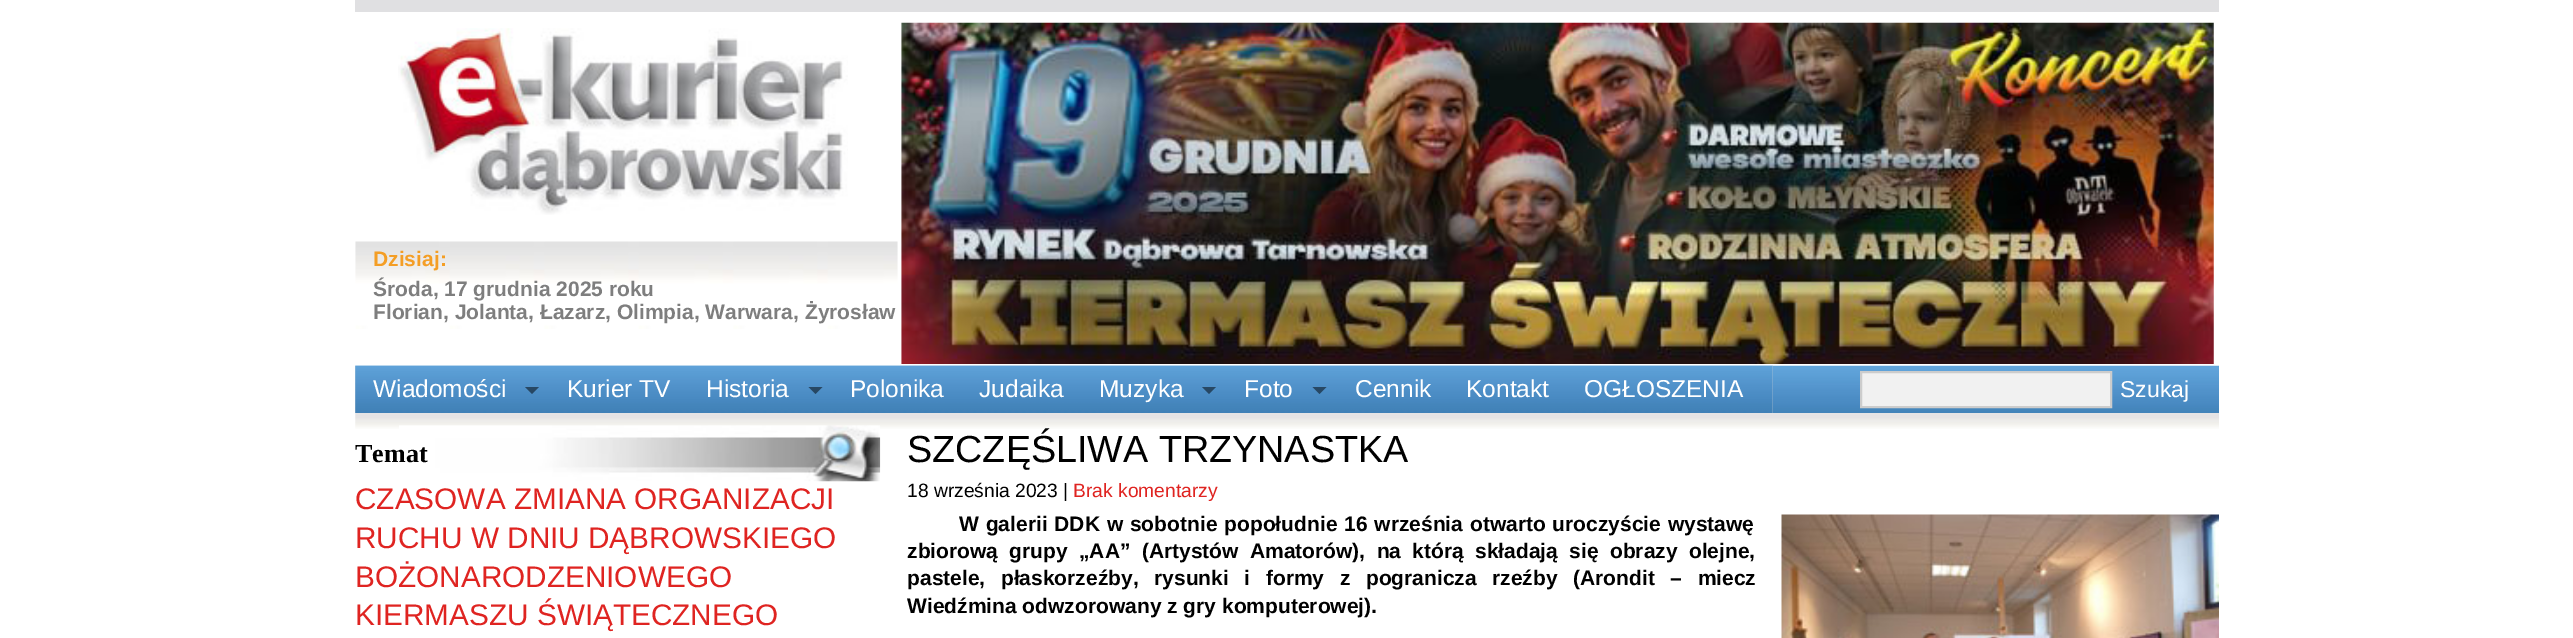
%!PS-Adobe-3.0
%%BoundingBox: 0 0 2573 638
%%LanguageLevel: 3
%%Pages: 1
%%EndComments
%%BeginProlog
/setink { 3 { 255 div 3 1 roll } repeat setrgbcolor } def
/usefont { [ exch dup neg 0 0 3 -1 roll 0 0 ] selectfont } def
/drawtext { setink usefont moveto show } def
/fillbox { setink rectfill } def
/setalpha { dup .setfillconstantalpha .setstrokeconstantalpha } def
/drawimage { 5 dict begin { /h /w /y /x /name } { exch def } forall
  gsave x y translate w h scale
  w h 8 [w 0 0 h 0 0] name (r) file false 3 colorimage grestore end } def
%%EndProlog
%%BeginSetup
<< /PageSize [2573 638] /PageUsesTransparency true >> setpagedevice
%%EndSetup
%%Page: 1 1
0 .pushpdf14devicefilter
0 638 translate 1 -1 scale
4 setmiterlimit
0 0 2573 638 255 255 255 fillbox
355 0 1864 12 224 224 226 fillbox
(assets/img1.rgb) 398 28 450 187 drawimage
(assets/img2.rgb) 355 241 543 88 drawimage
(Dzisiaj:) 373 266 /LiberationSans-Bold 21 244 158 37 drawtext
(Środa, 17 grudnia 2025 roku) 373 296 /LiberationSans-Bold 21 126 126 126 drawtext
(Florian, Jolanta, Łazarz, Olimpia, Warwara, Żyrosław) 373 319 /LiberationSans-Bold 21 126 126 126 drawtext
(assets/img3.rgb) 901 22 1313 342 drawimage
(assets/img4.rgb) 355 365 1864 48 drawimage
(assets/img5.rgb) 355 365 1418 48 drawimage
(Wiadomości) 373 397 /LiberationSans-Regular 24.5 255 255 255 drawtext
0.5 setalpha
0 0 0 setink
525 387 moveto 539 387 lineto 532 394 lineto closepath fill
1 setalpha
(Kurier TV) 567 397 /LiberationSans-Regular 24.5 255 255 255 drawtext
(Historia) 706 397 /LiberationSans-Regular 24.5 255 255 255 drawtext
0.5 setalpha
0 0 0 setink
808.5 387 moveto 822.5 387 lineto 815.5 394 lineto closepath fill
1 setalpha
(Polonika) 850 397 /LiberationSans-Regular 24.5 255 255 255 drawtext
(Judaika) 979 397 /LiberationSans-Regular 24.5 255 255 255 drawtext
(Muzyka) 1099 397 /LiberationSans-Regular 24.5 255 255 255 drawtext
0.5 setalpha
0 0 0 setink
1202 387 moveto 1216 387 lineto 1209 394 lineto closepath fill
1 setalpha
(Foto) 1244 397 /LiberationSans-Regular 24.5 255 255 255 drawtext
0.5 setalpha
0 0 0 setink
1312.5 387 moveto 1326.5 387 lineto 1319.5 394 lineto closepath fill
1 setalpha
(Cennik) 1355 397 /LiberationSans-Regular 24.5 255 255 255 drawtext
(Kontakt) 1466 397 /LiberationSans-Regular 24.5 255 255 255 drawtext
(OGŁOSZENIA) 1584 397 /LiberationSans-Regular 24.5 255 255 255 drawtext
241 241 241 setink
1861 372 moveto 2111 372 lineto 2111 407 lineto 1861 407 lineto closepath gsave fill grestore
204 204 204 setink
2 setlinewidth
stroke
(Szukaj) 2120 397 /LiberationSans-Regular 23 255 255 255 drawtext
(assets/img6.rgb) 355 413 1864 16 drawimage
(assets/img7.rgb) 399 425 482 57 drawimage
(Temat) 355 462 /LiberationSerif-Bold 26 0 0 0 drawtext
(CZASOWA ZMIANA ORGANIZACJI) 355 509 /LiberationSans-Regular 29.75 223 36 33 drawtext
(RUCHU W DNIU DĄBROWSKIEGO) 355 548 /LiberationSans-Regular 29.75 223 36 33 drawtext
(BOŻONARODZENIOWEGO) 355 587 /LiberationSans-Regular 29.75 223 36 33 drawtext
(KIERMASZU ŚWIĄTECZNEGO) 355 625 /LiberationSans-Regular 29.75 223 36 33 drawtext
(SZCZĘŚLIWA TRZYNASTKA) 907 462 /LiberationSans-Regular 37.75 0 0 0 drawtext
(18 września 2023 |) 907 497 /LiberationSans-Regular 19.25 0 0 0 drawtext
(Brak komentarzy) 1073 497 /LiberationSans-Regular 19.25 223 36 33 drawtext
/LiberationSans-Bold 21 usefont
0 0 0 setink
959 531 moveto 1 0 32 (W galerii DDK w sobotnie popołudnie 16 września otwarto uroczyście wystawę) widthshow
907 558 moveto 5.5 0 32 (zbiorową grupy „AA” \(Artystów Amatorów\), na którą składają się obrazy olejne,) widthshow
907 585 moveto 9.75 0 32 (pastele, płaskorzeźby, rysunki i formy z pogranicza rzeźby \(Arondit – miecz) widthshow
(Wiedźmina odwzorowany z gry komputerowej\).) 907 613 /LiberationSans-Bold 21 0 0 0 drawtext
(assets/img8.rgb) 1781 514 438 124 drawimage
.poppdf14devicefilter showpage
%%EOF
